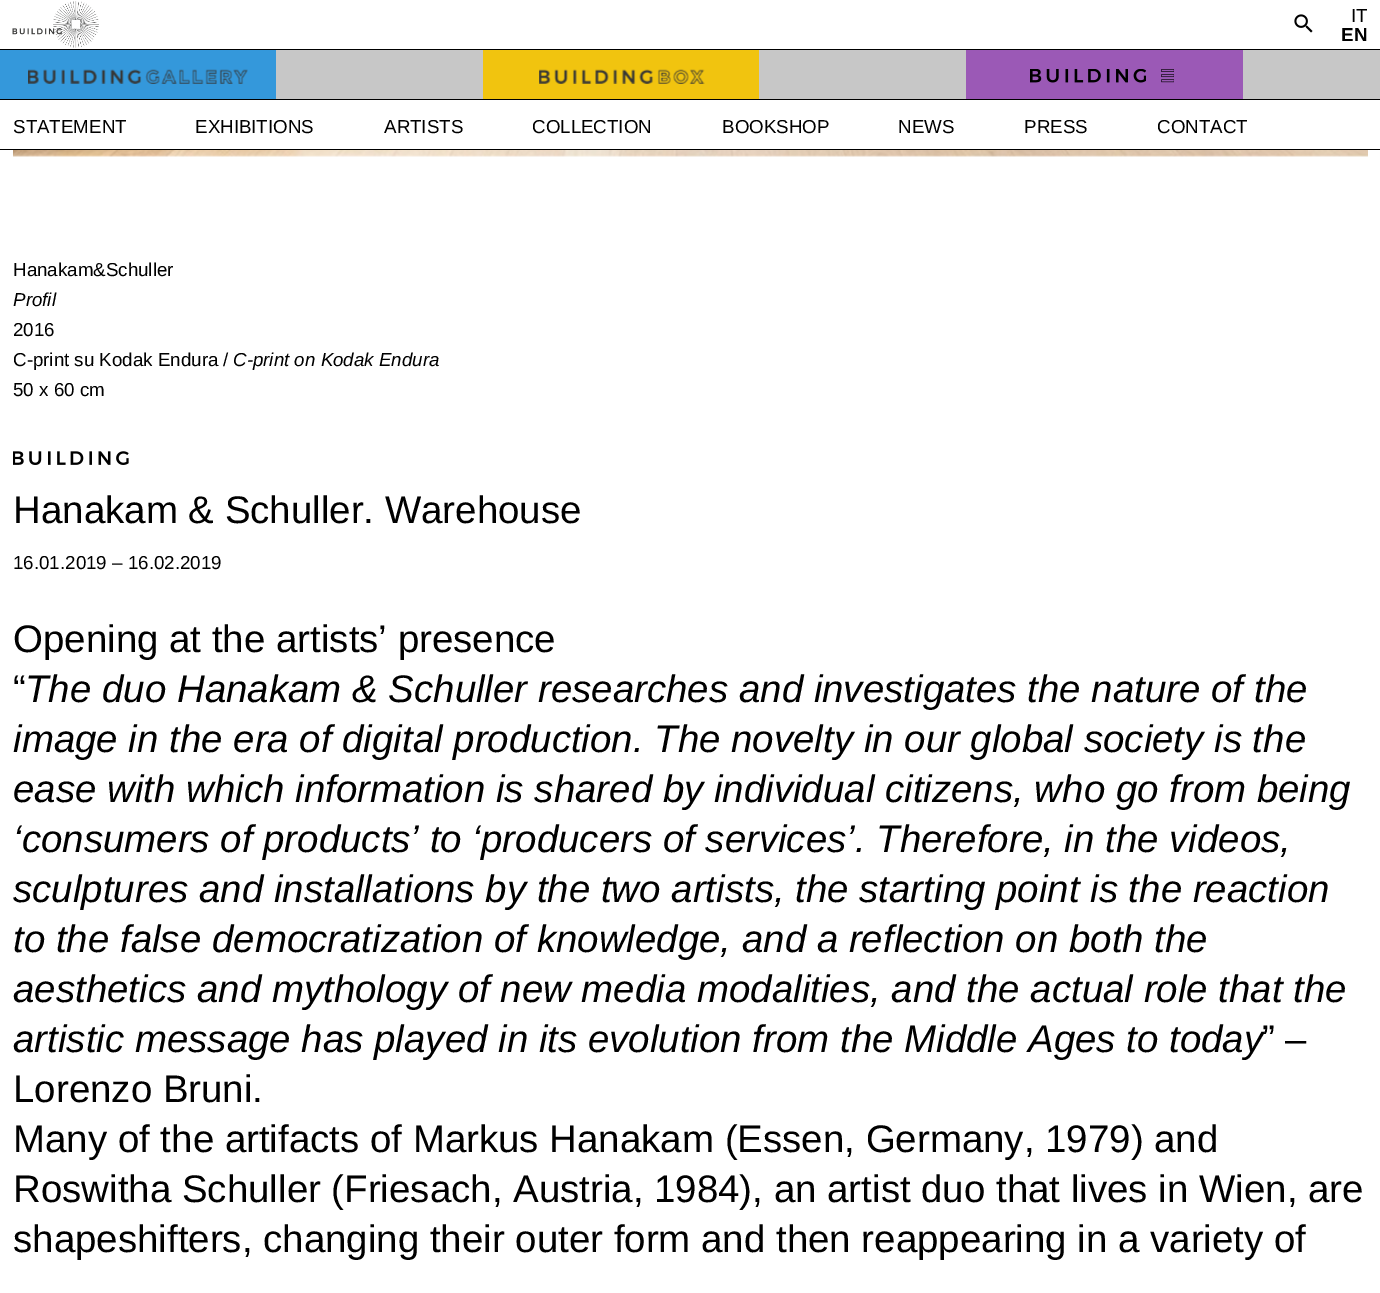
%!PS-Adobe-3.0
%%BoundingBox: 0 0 1380 1293
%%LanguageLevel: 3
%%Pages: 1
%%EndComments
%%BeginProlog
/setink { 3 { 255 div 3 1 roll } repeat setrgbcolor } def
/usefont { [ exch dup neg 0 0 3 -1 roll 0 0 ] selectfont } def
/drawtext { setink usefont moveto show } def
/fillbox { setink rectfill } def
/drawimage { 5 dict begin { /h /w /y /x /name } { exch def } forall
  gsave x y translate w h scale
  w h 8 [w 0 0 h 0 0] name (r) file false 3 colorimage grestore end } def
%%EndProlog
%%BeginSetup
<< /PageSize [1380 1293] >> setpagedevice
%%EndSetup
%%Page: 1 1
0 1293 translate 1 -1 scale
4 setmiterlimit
0 0 1380 1293 255 255 255 fillbox
0 49 1380 1 0 0 0 fillbox
(assets/img1.rgb) 12 1 87 47 drawimage
(assets/img2.rgb) 1294 14 19 19 drawimage
(IT) 1351 22 /LiberationSans-Regular 18.75 0 0 0 drawtext
(EN) 1341 41 /LiberationSans-Bold 18.75 0 0 0 drawtext
0 149 1380 1 0 0 0 fillbox
0 99 1380 1 0 0 0 fillbox
0 50 276 49 52 152 219 fillbox
(assets/img3.rgb) 28 69 220 15 drawimage
276 50 1104 49 199 199 199 fillbox
483 50 276 49 241 196 15 fillbox
(assets/img4.rgb) 539 69 166 15 drawimage
966 50 277 49 155 89 182 fillbox
(assets/img5.rgb) 1030 69 116 14 drawimage
(assets/img6.rgb) 1161 69 13 14 drawimage
(STATEMENT) 13 133 /LiberationSans-Regular 18.75 0 0 0 drawtext
(EXHIBITIONS) 195 133 /LiberationSans-Regular 18.75 0 0 0 drawtext
(ARTISTS) 384 133 /LiberationSans-Regular 18.75 0 0 0 drawtext
(COLLECTION) 532 133 /LiberationSans-Regular 18.75 0 0 0 drawtext
(BOOKSHOP) 722 133 /LiberationSans-Regular 18.75 0 0 0 drawtext
(NEWS) 898 133 /LiberationSans-Regular 18.75 0 0 0 drawtext
(PRESS) 1024 133 /LiberationSans-Regular 18.75 0 0 0 drawtext
(CONTACT) 1157 133 /LiberationSans-Regular 18.75 0 0 0 drawtext
(assets/img7.rgb) 13 150 1355 7 drawimage
(Hanakam&Schuller) 13 276 /LiberationSans-Regular 18.75 0 0 0 drawtext
(Profil) 13 306 /LiberationSans-Italic 18.75 0 0 0 drawtext
(2016) 13 336 /LiberationSans-Regular 18.75 0 0 0 drawtext
(C-print su Kodak Endura /) 13 366 /LiberationSans-Regular 18.75 0 0 0 drawtext
(C-print on Kodak Endura) 233 366 /LiberationSans-Italic 18.75 0 0 0 drawtext
(50 x 60 cm) 13 396 /LiberationSans-Regular 18.75 0 0 0 drawtext
(assets/img8.rgb) 13 451 116 14 drawimage
(Hanakam & Schuller. Warehouse) 13 523 /LiberationSans-Regular 38.45 0 0 0 drawtext
(16.01.2019 – 16.02.2019) 13 569 /LiberationSans-Regular 18.75 0 0 0 drawtext
(Opening at the artists’ presence) 13 652 /LiberationSans-Regular 38.45 0 0 0 drawtext
(“) 13 702 /LiberationSans-Regular 38.45 0 0 0 drawtext
(The duo Hanakam & Schuller researches and investigates the nature of the) 25 702 /LiberationSans-Italic 38.45 0 0 0 drawtext
(image in the era of digital production. The novelty in our global society is the) 13 752 /LiberationSans-Italic 38.45 0 0 0 drawtext
(ease with which information is shared by individual citizens, who go from being) 13 802 /LiberationSans-Italic 38.45 0 0 0 drawtext
(‘consumers of products’ to ‘producers of services’. Therefore, in the videos,) 13 852 /LiberationSans-Italic 38.45 0 0 0 drawtext
(sculptures and installations by the two artists, the starting point is the reaction) 13 902 /LiberationSans-Italic 38.45 0 0 0 drawtext
(to the false democratization of knowledge, and a reflection on both the) 13 952 /LiberationSans-Italic 38.45 0 0 0 drawtext
(aesthetics and mythology of new media modalities, and the actual role that the) 13 1002 /LiberationSans-Italic 38.45 0 0 0 drawtext
(artistic message has played in its evolution from the Middle Ages to today) 13 1052 /LiberationSans-Italic 38.45 0 0 0 drawtext
(” –) 1262 1052 /LiberationSans-Regular 38.45 0 0 0 drawtext
(Lorenzo Bruni.) 13 1102 /LiberationSans-Regular 38.45 0 0 0 drawtext
(Many of the artifacts of Markus Hanakam \(Essen, Germany, 1979\) and) 13 1152 /LiberationSans-Regular 38.45 0 0 0 drawtext
(Roswitha Schuller \(Friesach, Austria, 1984\), an artist duo that lives in Wien, are) 13 1202 /LiberationSans-Regular 38.45 0 0 0 drawtext
(shapeshifters, changing their outer form and then reappearing in a variety of) 13 1252 /LiberationSans-Regular 38.45 0 0 0 drawtext
showpage
%%EOF
